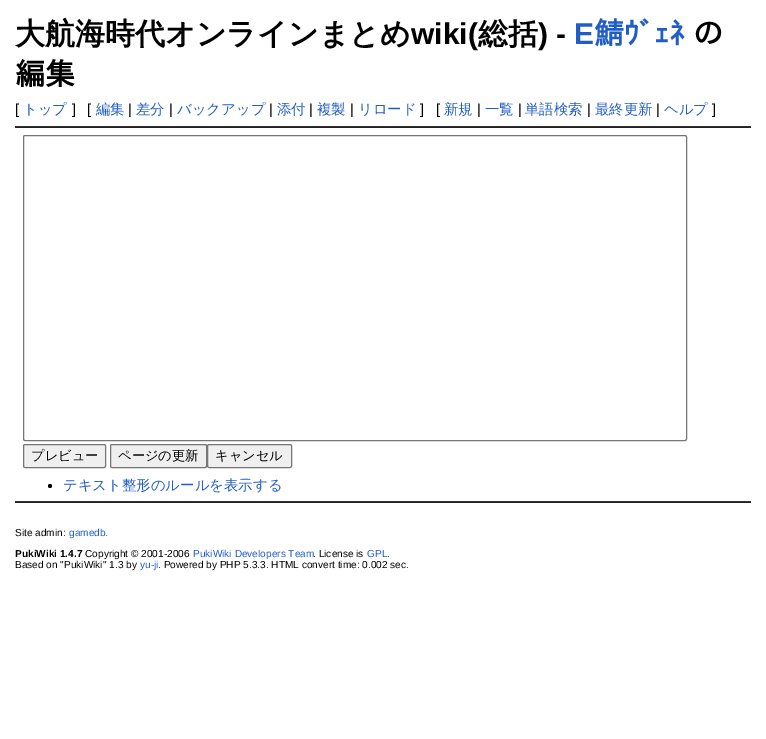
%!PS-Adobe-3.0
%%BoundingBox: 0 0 766 739
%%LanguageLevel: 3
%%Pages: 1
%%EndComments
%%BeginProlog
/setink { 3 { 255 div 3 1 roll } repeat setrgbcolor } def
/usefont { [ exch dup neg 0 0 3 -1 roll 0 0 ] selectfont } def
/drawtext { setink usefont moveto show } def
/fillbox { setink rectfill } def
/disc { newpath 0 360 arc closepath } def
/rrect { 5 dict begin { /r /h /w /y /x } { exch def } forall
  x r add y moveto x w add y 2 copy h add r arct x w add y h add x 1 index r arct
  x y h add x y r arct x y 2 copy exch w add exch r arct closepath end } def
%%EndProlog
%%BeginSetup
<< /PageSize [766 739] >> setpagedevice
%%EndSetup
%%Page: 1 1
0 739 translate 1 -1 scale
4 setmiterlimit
0 0 766 739 255 255 255 fillbox
(大航海時代オンラインまとめ) 15 44 /WenQuanYiZenHei-Bold 30 0 0 0 drawtext
(wiki\() 411 44 /LiberationSans-Bold 30 0 0 0 drawtext
(総括) 478 44 /WenQuanYiZenHei-Bold 30 0 0 0 drawtext
(\) -) 538 44 /LiberationSans-Bold 30 0 0 0 drawtext
(E) 574 44 /LiberationSans-Bold 30 33 93 198 drawtext
(鯖ｳﾞｪﾈ) 594 44 /IPAGothic-Bold 30 33 93 198 drawtext
(の) 693 44 /IPAGothic-Bold 30 0 0 0 drawtext
(編集) 15 85 /IPAGothic-Bold 30 0 0 0 drawtext
([) 15 114 /LiberationSans-Regular 14.4 0 0 0 drawtext
(トップ) 23 114 /WenQuanYiZenHei-Medium 14.4 33 93 198 drawtext
(]) 72 114 /LiberationSans-Regular 14.4 0 0 0 drawtext
([) 87 114 /LiberationSans-Regular 14.4 0 0 0 drawtext
(編集) 96 114 /WenQuanYiZenHei-Medium 14.4 33 93 198 drawtext
(|) 128 114 /LiberationSans-Regular 14.4 0 0 0 drawtext
(差分) 136 114 /WenQuanYiZenHei-Medium 14.4 33 93 198 drawtext
(|) 169 114 /LiberationSans-Regular 14.4 0 0 0 drawtext
(バックアップ) 177 114 /WenQuanYiZenHei-Medium 14.4 33 93 198 drawtext
(|) 269 114 /LiberationSans-Regular 14.4 0 0 0 drawtext
(添付) 277 114 /WenQuanYiZenHei-Medium 14.4 33 93 198 drawtext
(|) 309 114 /LiberationSans-Regular 14.4 0 0 0 drawtext
(複製) 317 114 /WenQuanYiZenHei-Medium 14.4 33 93 198 drawtext
(|) 350 114 /LiberationSans-Regular 14.4 0 0 0 drawtext
(リロード) 358 114 /WenQuanYiZenHei-Medium 14.4 33 93 198 drawtext
(]) 420 114 /LiberationSans-Regular 14.4 0 0 0 drawtext
([) 436 114 /LiberationSans-Regular 14.4 0 0 0 drawtext
(新規) 444 114 /WenQuanYiZenHei-Medium 14.4 33 93 198 drawtext
(|) 477 114 /LiberationSans-Regular 14.4 0 0 0 drawtext
(一覧) 485 114 /WenQuanYiZenHei-Medium 14.4 33 93 198 drawtext
(|) 518 114 /LiberationSans-Regular 14.4 0 0 0 drawtext
(単語検索) 525 114 /WenQuanYiZenHei-Medium 14.4 33 93 198 drawtext
(|) 587 114 /LiberationSans-Regular 14.4 0 0 0 drawtext
(最終更新) 595 114 /WenQuanYiZenHei-Medium 14.4 33 93 198 drawtext
(|) 656 114 /LiberationSans-Regular 14.4 0 0 0 drawtext
(ヘルプ) 664 114 /WenQuanYiZenHei-Medium 14.4 33 93 198 drawtext
(]) 712 114 /LiberationSans-Regular 14.4 0 0 0 drawtext
15 126 736 1 51 51 51 fillbox
15 127 736 1 34 34 34 fillbox
118 118 118 setink
23.5 135.5 663 305 1.5 rrect stroke
239 239 239 setink
23.5 444.5 82 23 1.5 rrect gsave fill grestore
118 118 118 setink
stroke
(プレビュー) 31 460 /WenQuanYiZenHei-Medium 13.25 0 0 0 drawtext
239 239 239 setink
110.5 444.5 96 23 1.5 rrect gsave fill grestore
118 118 118 setink
stroke
(ページの更新) 118 460 /WenQuanYiZenHei-Medium 13.25 0 0 0 drawtext
239 239 239 setink
207.5 444.5 84 23 1.5 rrect gsave fill grestore
118 118 118 setink
stroke
(キャンセル) 215 460 /WenQuanYiZenHei-Medium 13.25 0 0 0 drawtext
50 486 2 disc fill
(テキスト整形のルールを表示する) 63 490 /WenQuanYiZenHei-Medium 14.4 33 93 198 drawtext
15 501 736 1 51 51 51 fillbox
15 502 736 1 34 34 34 fillbox
(Site admin:) 15 536 /LiberationSans-Regular 10.1 0 0 0 drawtext
(gamedb.) 69 536 /LiberationSans-Regular 10.1 33 93 198 drawtext
(PukiWiki 1.4.7) 15 557 /LiberationSans-Bold 10.1 0 0 0 drawtext
(Copyright © 2001-2006) 85 557 /LiberationSans-Regular 10.1 0 0 0 drawtext
(PukiWiki Developers Team) 193 557 /LiberationSans-Regular 10.1 33 93 198 drawtext
(. License is) 313 557 /LiberationSans-Regular 10.1 0 0 0 drawtext
(GPL) 367 557 /LiberationSans-Regular 10.1 33 93 198 drawtext
(.) 387 557 /LiberationSans-Regular 10.1 0 0 0 drawtext
(Based on "PukiWiki" 1.3 by) 15 568 /LiberationSans-Regular 10.1 0 0 0 drawtext
(yu-ji) 140 568 /LiberationSans-Regular 10.1 33 93 198 drawtext
(. Powered by PHP 5.3.3. HTML convert time: 0.002 sec.) 158 568 /LiberationSans-Regular 10.1 0 0 0 drawtext
showpage
%%EOF
